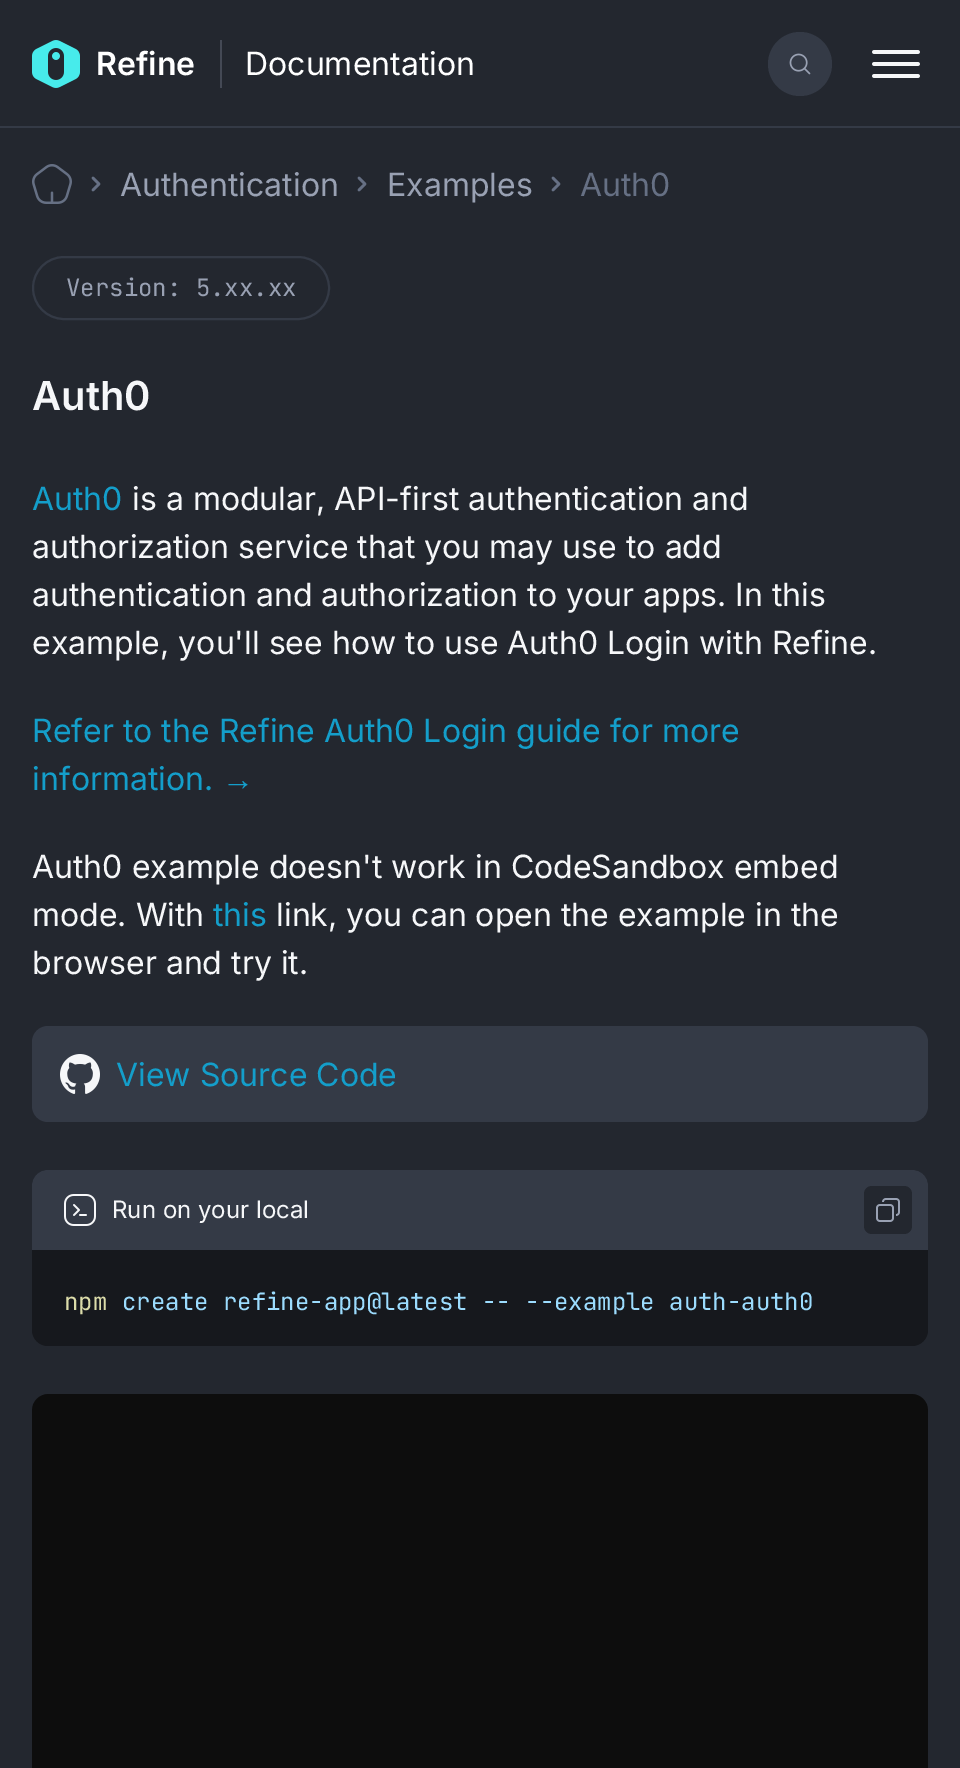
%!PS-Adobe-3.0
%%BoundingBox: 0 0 960 1768
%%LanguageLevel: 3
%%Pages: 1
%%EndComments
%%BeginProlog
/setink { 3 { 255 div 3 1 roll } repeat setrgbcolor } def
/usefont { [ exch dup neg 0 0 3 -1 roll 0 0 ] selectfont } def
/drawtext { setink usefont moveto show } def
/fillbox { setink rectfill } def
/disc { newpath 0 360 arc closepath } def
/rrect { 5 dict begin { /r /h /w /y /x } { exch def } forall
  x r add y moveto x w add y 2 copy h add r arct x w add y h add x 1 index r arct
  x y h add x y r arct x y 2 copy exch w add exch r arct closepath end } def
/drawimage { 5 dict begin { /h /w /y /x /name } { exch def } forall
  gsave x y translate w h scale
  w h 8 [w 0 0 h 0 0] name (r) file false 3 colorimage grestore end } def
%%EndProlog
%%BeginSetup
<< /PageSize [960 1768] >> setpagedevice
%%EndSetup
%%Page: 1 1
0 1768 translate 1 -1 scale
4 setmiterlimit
0 0 960 1768 35 39 47 fillbox
0 126 960 2 52 58 70 fillbox
(assets/img1.rgb) 32 40 48 48 drawimage
(Refine) 96 75 /Inter-SemiBold 32 255 255 255 drawtext
220 40 2 48 68 73 85 fillbox
(Documentation) 245 75 /Inter-Regular 32 255 255 255 drawtext
52 58 70 setink
800 64 32 disc fill
(assets/img2.rgb) 789 53 22 22 drawimage
(assets/img3.rgb) 872 50 48 28 drawimage
(assets/img4.rgb) 32 164 40 40 drawimage
102 112 132 setink
2.5 setlinewidth
1 setlinecap
1 setlinejoin
93 178 moveto 99 184 lineto 93 190 lineto stroke
(Authentication) 120 196 /Inter-Regular 32 153 161 179 drawtext
102 112 132 setink
359 178 moveto 365 184 lineto 359 190 lineto stroke
(Examples) 387 196 /Inter-Regular 32 153 161 179 drawtext
102 112 132 setink
553 178 moveto 559 184 lineto 553 190 lineto stroke
(Auth0) 580 196 /Inter-Regular 32 102 112 132 drawtext
52 58 70 setink
2 setlinewidth
0 setlinecap
0 setlinejoin
33 257 296 62 31 rrect stroke
(Version: 5.xx.xx) 66 296 /JetBrainsMono-Regular 24 153 161 179 drawtext
(Auth0) 32 410 /Inter-SemiBold 40 246 247 249 drawtext
(Auth0) 32 510 /Inter-Regular 32 20 158 202 drawtext
(is a modular, API-first authentication and) 132 510 /Inter-Regular 32 246 247 249 drawtext
(authorization service that you may use to add) 32 558 /Inter-Regular 32 246 247 249 drawtext
(authentication and authorization to your apps. In this) 32 606 /Inter-Regular 32 246 247 249 drawtext
(example, you'll see how to use Auth0 Login with Refine.) 32 654 /Inter-Regular 32 246 247 249 drawtext
(Refer to the Refine Auth0 Login guide for more) 32 742 /Inter-Regular 32 20 158 202 drawtext
(information.) 32 790 /Inter-Regular 32 20 158 202 drawtext
(→) 222 790 /LiberationSans-Regular 32 20 158 202 drawtext
(Auth0 example doesn't work in CodeSandbox embed) 32 878 /Inter-Regular 32 246 247 249 drawtext
(mode. With) 32 926 /Inter-Regular 32 246 247 249 drawtext
(this) 213 926 /Inter-Regular 32 20 158 202 drawtext
(link, you can open the example in the) 276 926 /Inter-Regular 32 246 247 249 drawtext
(browser and try it.) 32 974 /Inter-Regular 32 246 247 249 drawtext
52 58 70 setink
32 1026 896 96 16 rrect fill
(assets/img5.rgb) 60 1054 40 40 drawimage
(View Source Code) 116 1086 /Inter-Regular 32 20 158 202 drawtext
22 24 29 setink
32 1170 896 176 16 rrect fill
52 58 70 setink
48 1170 moveto 912 1170 lineto 921 1170 928 1177 928 1186 curveto 928 1250 lineto 32 1250 lineto 32 1186 lineto 32 1177 39 1170 48 1170 curveto closepath fill
(assets/img6.rgb) 64 1194 32 32 drawimage
(Run on your local) 112 1218 /Inter-Regular 24 246 247 249 drawtext
35 39 47 setink
864 1186 48 48 8 rrect fill
(assets/img7.rgb) 876 1198 24 24 drawimage
(npm) 64 1310 /JetBrainsMono-Regular 24 220 220 170 drawtext
(create refine-app@latest -- --example auth-auth0) 122 1310 /JetBrainsMono-Regular 24 156 220 254 drawtext
(assets/img8.rgb) 32 1394 896 374 drawimage
showpage
%%EOF
